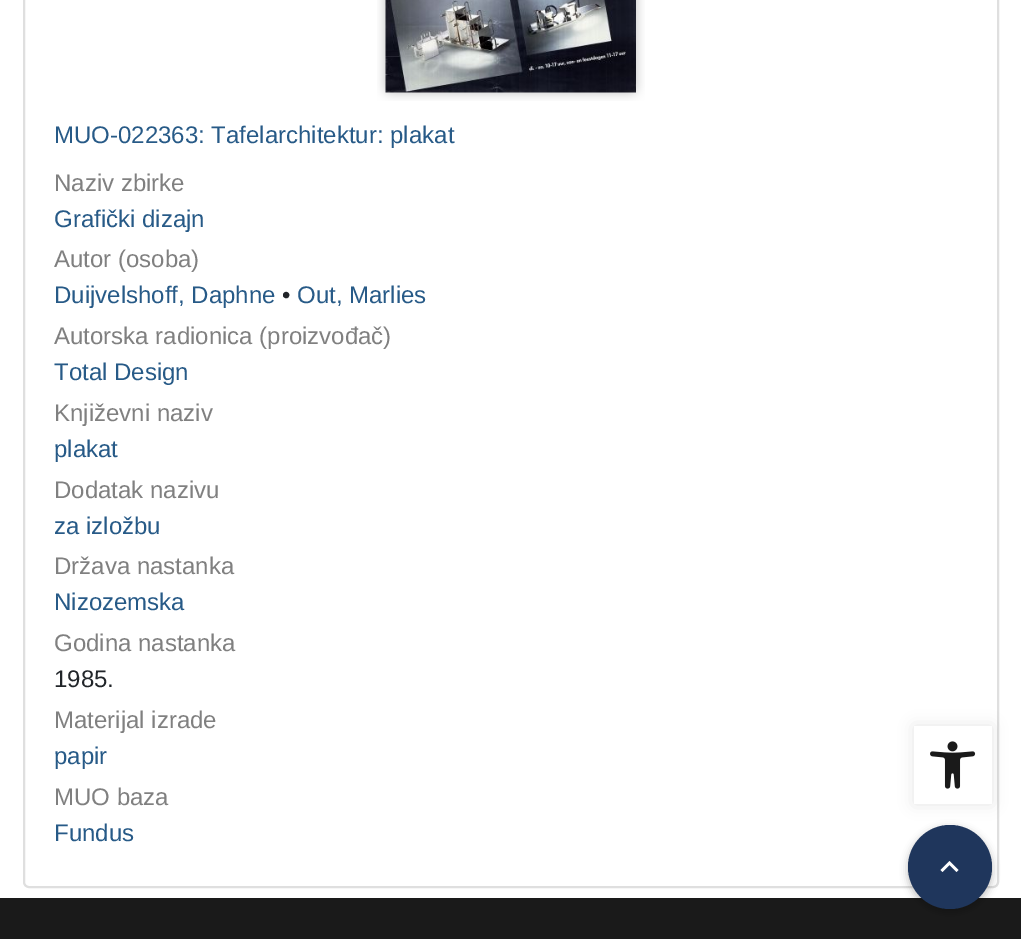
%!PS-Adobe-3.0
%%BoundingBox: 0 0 1021 939
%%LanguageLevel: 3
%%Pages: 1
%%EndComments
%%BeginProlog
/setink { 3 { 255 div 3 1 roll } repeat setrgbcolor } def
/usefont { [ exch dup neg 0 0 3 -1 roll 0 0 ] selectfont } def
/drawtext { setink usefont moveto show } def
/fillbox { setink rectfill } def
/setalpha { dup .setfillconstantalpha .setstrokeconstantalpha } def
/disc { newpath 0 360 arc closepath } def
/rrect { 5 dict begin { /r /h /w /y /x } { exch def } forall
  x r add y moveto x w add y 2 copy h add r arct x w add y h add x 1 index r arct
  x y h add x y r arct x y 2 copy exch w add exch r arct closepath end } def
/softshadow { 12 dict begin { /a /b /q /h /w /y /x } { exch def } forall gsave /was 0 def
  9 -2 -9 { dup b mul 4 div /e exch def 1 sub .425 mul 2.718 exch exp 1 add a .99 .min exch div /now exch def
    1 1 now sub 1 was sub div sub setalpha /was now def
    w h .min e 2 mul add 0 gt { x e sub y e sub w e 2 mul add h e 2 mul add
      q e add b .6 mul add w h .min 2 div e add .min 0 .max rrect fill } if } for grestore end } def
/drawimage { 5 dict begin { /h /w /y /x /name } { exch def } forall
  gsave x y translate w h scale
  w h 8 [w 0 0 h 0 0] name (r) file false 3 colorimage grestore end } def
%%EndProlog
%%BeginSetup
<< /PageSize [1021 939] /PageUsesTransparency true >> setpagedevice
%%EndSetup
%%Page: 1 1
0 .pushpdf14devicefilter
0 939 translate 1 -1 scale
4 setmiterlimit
0 0 1021 939 255 255 255 fillbox
223 223 223 setink
2 setlinewidth
24 -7 974 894 5 rrect stroke
(assets/img1.rgb) 377 0 268 101 drawimage
(MUO-022363: Tafelarchitektur: plakat) 54 143 /LiberationSans-Regular 24 39 90 135 drawtext
(Naziv zbirke) 54 191 /LiberationSans-Regular 24 128 128 128 drawtext
(Grafički dizajn) 54 227 /LiberationSans-Regular 24 39 90 135 drawtext
(Autor \(osoba\)) 54 267 /LiberationSans-Regular 24 128 128 128 drawtext
(Duijvelshoff, Daphne) 54 303 /LiberationSans-Regular 24 39 90 135 drawtext
(•) 282 303 /LiberationSans-Regular 24 33 37 41 drawtext
(Out, Marlies) 297 303 /LiberationSans-Regular 24 39 90 135 drawtext
(Autorska radionica \(proizvođač\)) 54 344 /LiberationSans-Regular 24 128 128 128 drawtext
(Total Design) 54 380 /LiberationSans-Regular 24 39 90 135 drawtext
(Književni naziv) 54 421 /LiberationSans-Regular 24 128 128 128 drawtext
(plakat) 54 457 /LiberationSans-Regular 24 39 90 135 drawtext
(Dodatak nazivu) 54 498 /LiberationSans-Regular 24 128 128 128 drawtext
(za izložbu) 54 534 /LiberationSans-Regular 24 39 90 135 drawtext
(Država nastanka) 54 574 /LiberationSans-Regular 24 128 128 128 drawtext
(Nizozemska) 54 610 /LiberationSans-Regular 24 39 90 135 drawtext
(Godina nastanka) 54 651 /LiberationSans-Regular 24 128 128 128 drawtext
(1985.) 54 687 /LiberationSans-Regular 24 33 37 41 drawtext
(Materijal izrade) 54 728 /LiberationSans-Regular 24 128 128 128 drawtext
(papir) 54 764 /LiberationSans-Regular 24 39 90 135 drawtext
(MUO baza) 54 805 /LiberationSans-Regular 24 128 128 128 drawtext
(Fundus) 54 841 /LiberationSans-Regular 24 39 90 135 drawtext
0 898 1021 41 26 26 26 fillbox
0 0 0 setink
908 828 84 84 42 4 0.26 softshadow
31 54 92 setink
950 867 42 disc fill
0 0 0 setink
914 726 78 78 0 7.5 0.1 softshadow
914 726 78 78 255 255 255 fillbox
(assets/img2.rgb) 930 741 46 48 drawimage
942.5 872 moveto 949.5 865 lineto 956.5 872 lineto 958.5 870 lineto 949.5 861 lineto 940.5 870 lineto closepath fill
.poppdf14devicefilter showpage
%%EOF
